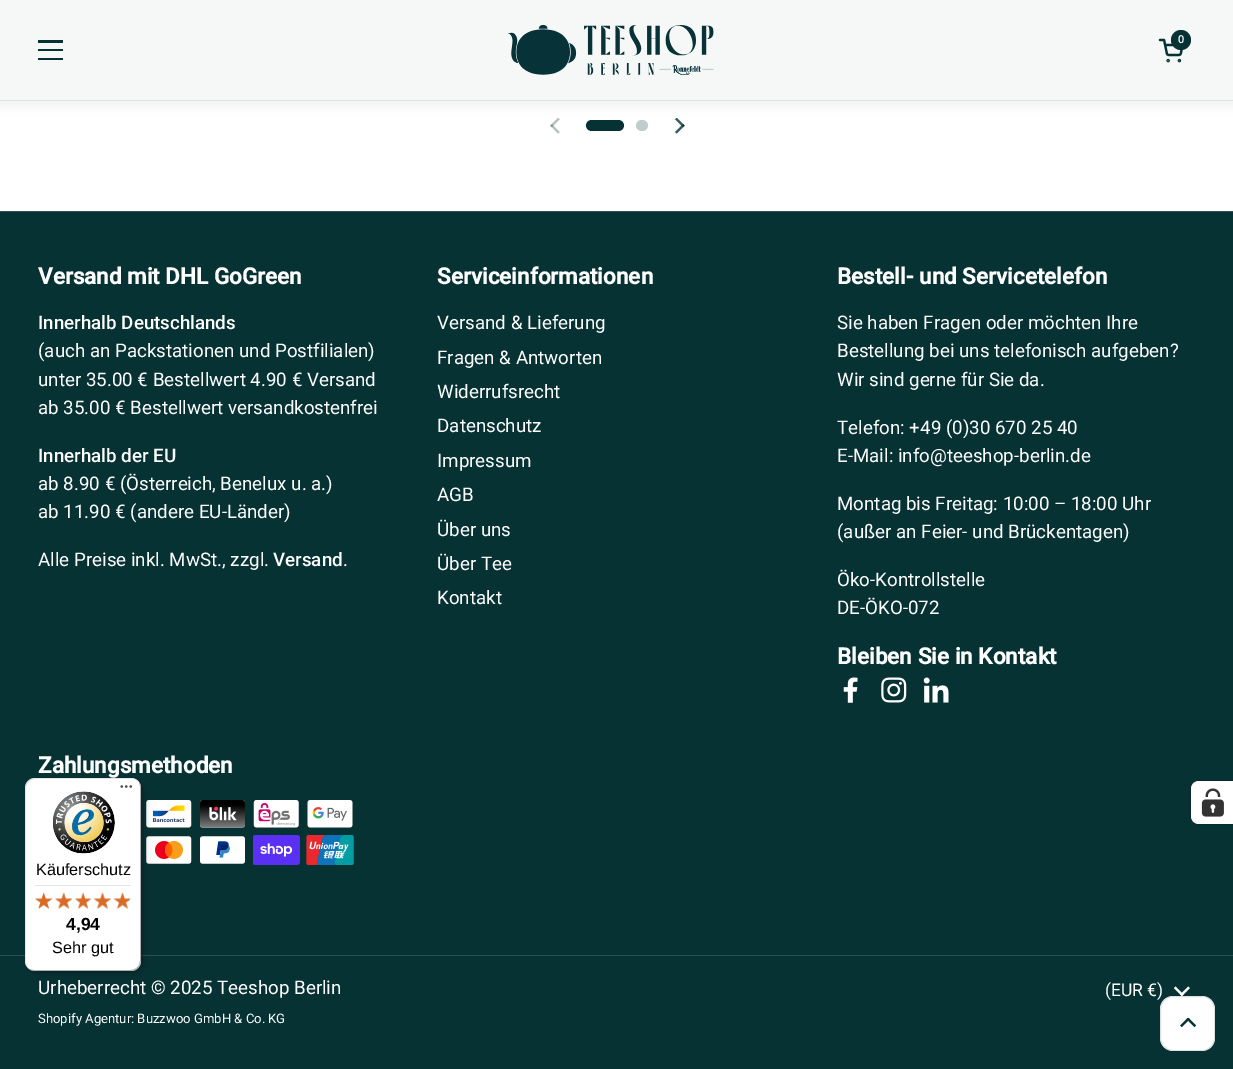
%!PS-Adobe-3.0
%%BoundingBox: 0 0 1233 1069
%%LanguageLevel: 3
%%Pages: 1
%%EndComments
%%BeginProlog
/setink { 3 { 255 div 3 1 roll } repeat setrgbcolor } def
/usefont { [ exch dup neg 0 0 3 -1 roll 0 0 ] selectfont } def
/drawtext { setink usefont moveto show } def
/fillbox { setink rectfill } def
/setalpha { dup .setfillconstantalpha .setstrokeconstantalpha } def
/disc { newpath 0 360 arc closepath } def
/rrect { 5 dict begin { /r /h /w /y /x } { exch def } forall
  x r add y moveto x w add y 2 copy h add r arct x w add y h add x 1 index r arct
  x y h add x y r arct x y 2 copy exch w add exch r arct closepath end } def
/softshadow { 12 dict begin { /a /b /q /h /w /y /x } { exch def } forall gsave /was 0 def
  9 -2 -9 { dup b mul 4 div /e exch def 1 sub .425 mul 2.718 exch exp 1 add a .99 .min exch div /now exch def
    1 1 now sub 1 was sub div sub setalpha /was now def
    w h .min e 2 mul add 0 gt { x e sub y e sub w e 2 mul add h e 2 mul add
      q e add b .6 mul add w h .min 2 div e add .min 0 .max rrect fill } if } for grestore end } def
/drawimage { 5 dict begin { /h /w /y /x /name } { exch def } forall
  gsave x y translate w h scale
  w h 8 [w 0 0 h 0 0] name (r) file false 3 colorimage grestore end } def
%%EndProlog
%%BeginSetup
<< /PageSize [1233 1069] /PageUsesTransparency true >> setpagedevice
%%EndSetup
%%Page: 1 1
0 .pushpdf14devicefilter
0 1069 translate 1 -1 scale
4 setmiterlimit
0 0 1233 1069 255 255 255 fillbox
(assets/img3.rgb) 550 118 10 16 drawimage
7 50 52 setink
586 120 38 11 5.5 rrect fill
193 204 204 setink
636 120 12 11 5.5 rrect fill
(assets/img4.rgb) 675 118 10 16 drawimage
0 0 0 setink
-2 0 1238 106 0 6 0.06 softshadow
0 0 1233 100 246 247 247 fillbox
0 100 1233 1 222 227 227 fillbox
(assets/img1.rgb) 508 25 206 50 drawimage
(assets/img2.rgb) 1158 38 25 25 drawimage
7 50 52 setink
1181 40 10 disc fill
(0) 1178 43 /Roboto-Medium 11 255 255 255 drawtext
38 40 25 3 7 50 52 fillbox
38 49 25 2 7 50 52 fillbox
38 58 25 2 7 50 52 fillbox
0 212 1233 857 7 50 52 fillbox
0 211 1233 1 44 81 82 fillbox
(Versand mit DHL GoGreen) 38 284 /Roboto-Bold 22.5 255 255 255 drawtext
(Innerhalb Deutschlands) 38 329 /Roboto-Medium 18.75 255 255 255 drawtext
(\(auch an Packstationen und Postfilialen\)) 38 357 /Roboto-Regular 18.75 255 255 255 drawtext
(unter 35.00 € Bestellwert 4.90 € Versand) 38 386 /Roboto-Regular 18.75 255 255 255 drawtext
(ab 35.00 € Bestellwert versandkostenfrei) 38 414 /Roboto-Regular 18.75 255 255 255 drawtext
(Innerhalb der EU) 38 462 /Roboto-Medium 18.75 255 255 255 drawtext
(ab 8.90 € \(Österreich, Benelux u. a.\)) 38 490 /Roboto-Regular 18.75 255 255 255 drawtext
(ab 11.90 € \(andere EU-Länder\)) 38 518 /Roboto-Regular 18.75 255 255 255 drawtext
(Alle Preise inkl. MwSt., zzgl.) 38 566 /Roboto-Regular 18.75 255 255 255 drawtext
(Versand) 273 566 /Roboto-Medium 18.75 255 255 255 drawtext
(.) 343 566 /Roboto-Regular 18.75 255 255 255 drawtext
(Serviceinformationen) 437 284 /Roboto-Bold 22.5 255 255 255 drawtext
(Versand & Lieferung) 437 329 /Roboto-Regular 18.75 255 255 255 drawtext
(Fragen & Antworten) 437 364 /Roboto-Regular 18.75 255 255 255 drawtext
(Widerrufsrecht) 437 398 /Roboto-Regular 18.75 255 255 255 drawtext
(Datenschutz) 437 432 /Roboto-Regular 18.75 255 255 255 drawtext
(Impressum) 437 467 /Roboto-Regular 18.75 255 255 255 drawtext
(AGB) 437 501 /Roboto-Regular 18.75 255 255 255 drawtext
(Über uns) 437 536 /Roboto-Regular 18.75 255 255 255 drawtext
(Über Tee) 437 570 /Roboto-Regular 18.75 255 255 255 drawtext
(Kontakt) 437 604 /Roboto-Regular 18.75 255 255 255 drawtext
(Bestell- und Servicetelefon) 837 284 /Roboto-Bold 22.5 255 255 255 drawtext
(Sie haben Fragen oder möchten Ihre) 837 329 /Roboto-Regular 18.75 255 255 255 drawtext
(Bestellung bei uns telefonisch aufgeben?) 837 357 /Roboto-Regular 18.75 255 255 255 drawtext
(Wir sind gerne für Sie da.) 837 386 /Roboto-Regular 18.75 255 255 255 drawtext
(Telefon: +49 \(0\)30 670 25 40) 837 434 /Roboto-Regular 18.75 255 255 255 drawtext
(E-Mail: info@teeshop-berlin.de) 837 462 /Roboto-Regular 18.75 255 255 255 drawtext
(Montag bis Freitag: 10:00 – 18:00 Uhr) 837 510 /Roboto-Regular 18.75 255 255 255 drawtext
(\(außer an Feier- und Brückentagen\)) 837 538 /Roboto-Regular 18.75 255 255 255 drawtext
(Öko-Kontrollstelle) 837 586 /Roboto-Regular 18.75 255 255 255 drawtext
(DE-ÖKO-072) 837 614 /Roboto-Regular 18.75 255 255 255 drawtext
(Bleiben Sie in Kontakt) 837 664 /Roboto-Bold 22.5 255 255 255 drawtext
(assets/img5.rgb) 843 677 15 26 drawimage
(assets/img6.rgb) 881 677 26 26 drawimage
(assets/img7.rgb) 923 677 26 26 drawimage
(Zahlungsmethoden) 38 773 /Roboto-Bold 22.5 255 255 255 drawtext
(assets/img8.rgb) 146 800 46 28 drawimage
(assets/img9.rgb) 200 800 45 28 drawimage
(assets/img10.rgb) 253 800 46 28 drawimage
(assets/img11.rgb) 307 800 46 28 drawimage
(assets/img12.rgb) 146 836 46 28 drawimage
(assets/img13.rgb) 200 836 45 28 drawimage
(assets/img14.rgb) 253 835 47 30 drawimage
(assets/img15.rgb) 306 835 48 30 drawimage
0 955 1233 1 44 81 82 fillbox
(Urheberrecht © 2025 Teeshop Berlin) 38 994 /Roboto-Regular 18.75 255 255 255 drawtext
(Shopify Agentur: Buzzwoo GmbH & Co. KG) 38 1023 /Roboto-Regular 13.1 255 255 255 drawtext
(\(EUR €\)) 1105 996 /Roboto-Regular 17.5 255 255 255 drawtext
(assets/img16.rgb) 1174 986 16 10 drawimage
6 43 44 setink
1199 780.5 moveto 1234.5 780.5 lineto 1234.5 824.5 lineto 1199 824.5 lineto 1194.5 824.5 1190.5 820.5 1190.5 816 curveto 1190.5 789 lineto 1190.5 784.5 1194.5 780.5 1199 780.5 curveto closepath stroke
255 255 255 setink
1199 781 moveto 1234 781 lineto 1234 824 lineto 1199 824 lineto 1194.5 824 1191 820.5 1191 816 curveto 1191 789 lineto 1191 784.5 1194.5 781 1199 781 curveto closepath fill
(assets/img17.rgb) 1201 788 23 29 drawimage
0 0 0 setink
29 781 116 194 10 5 0.15 softshadow
26 779 117 194 10 1 0.15 softshadow
255 255 255 setink
25 778 116 193 10 rrect fill
0.1 setalpha
0 0 0 setink
36 779 moveto 132 779 lineto 134 779 136 779 137 780 curveto 136 779 133 778 131 778 curveto 35 778 lineto 29 778 25 782 25 788 curveto 25 961 lineto 25 964 26 967 28 969 curveto 27 967 26 965 26 962 curveto 26 789 lineto 26 783 31 779 36 779 curveto closepath fill
0.2 setalpha
29 969 moveto 30 970 33 971 35 971 curveto 131 971 lineto 137 971 141 967 141 961 curveto 141 788 lineto 141 786 140 784 139 782 curveto 140 786 lineto 140 960 lineto 140 966 136 970 130 970 curveto 34 970 lineto 32 970 30 970 29 969 curveto closepath fill
50 50 50 setink
27 967 moveto 29 970 32 971 35 971 curveto 131 971 lineto 137 971 141 967 141 961 curveto 141 788 lineto 141 786 140 783 139 782 curveto 140 783 140 785 140 787 curveto 140 960 lineto 140 966 136 970 130 970 curveto 34 970 lineto 32 970 29 969 27 967 curveto closepath fill
1 setalpha
(assets/img18.rgb) 120 785 13 3 drawimage
0.3 setalpha
255 255 255 setink
131 971 moveto 136.5 971 141 966.5 141 961 curveto 141 966 136 971 131 971 curveto closepath fill
1 setalpha
(assets/img19.rgb) 53 791 62 63 drawimage
(Käuferschutz) 36 875 /LiberationSans-Regular 16.25 0 0 0 drawtext
35 885 96 1 229 229 229 fillbox
(assets/img20.rgb) 35 893 17 16 drawimage
(assets/img21.rgb) 55 892 17 17 drawimage
(assets/img22.rgb) 75 892 16 17 drawimage
(assets/img23.rgb) 94 892 17 17 drawimage
(assets/img24.rgb) 114 892 17 17 drawimage
(assets/img25.rgb) 35 892 17 17 drawimage
(assets/img26.rgb) 55 892 18 17 drawimage
(assets/img27.rgb) 75 892 16 17 drawimage
(assets/img28.rgb) 93 892 18 17 drawimage
(assets/img29.rgb) 113 892 17 17 drawimage
(4,94) 66 930 /LiberationSans-Bold 17.5 0 0 0 drawtext
(Sehr gut) 52 953 /LiberationSans-Regular 16.25 0 0 0 drawtext
255 255 255 setink
1160 996 55 55 13 rrect fill
0.15 setalpha
7 50 52 setink
1160.5 996.5 54 54 12.5 rrect stroke
1 setalpha
(assets/img30.rgb) 1180 1018 16 10 drawimage
.poppdf14devicefilter showpage
%%EOF
